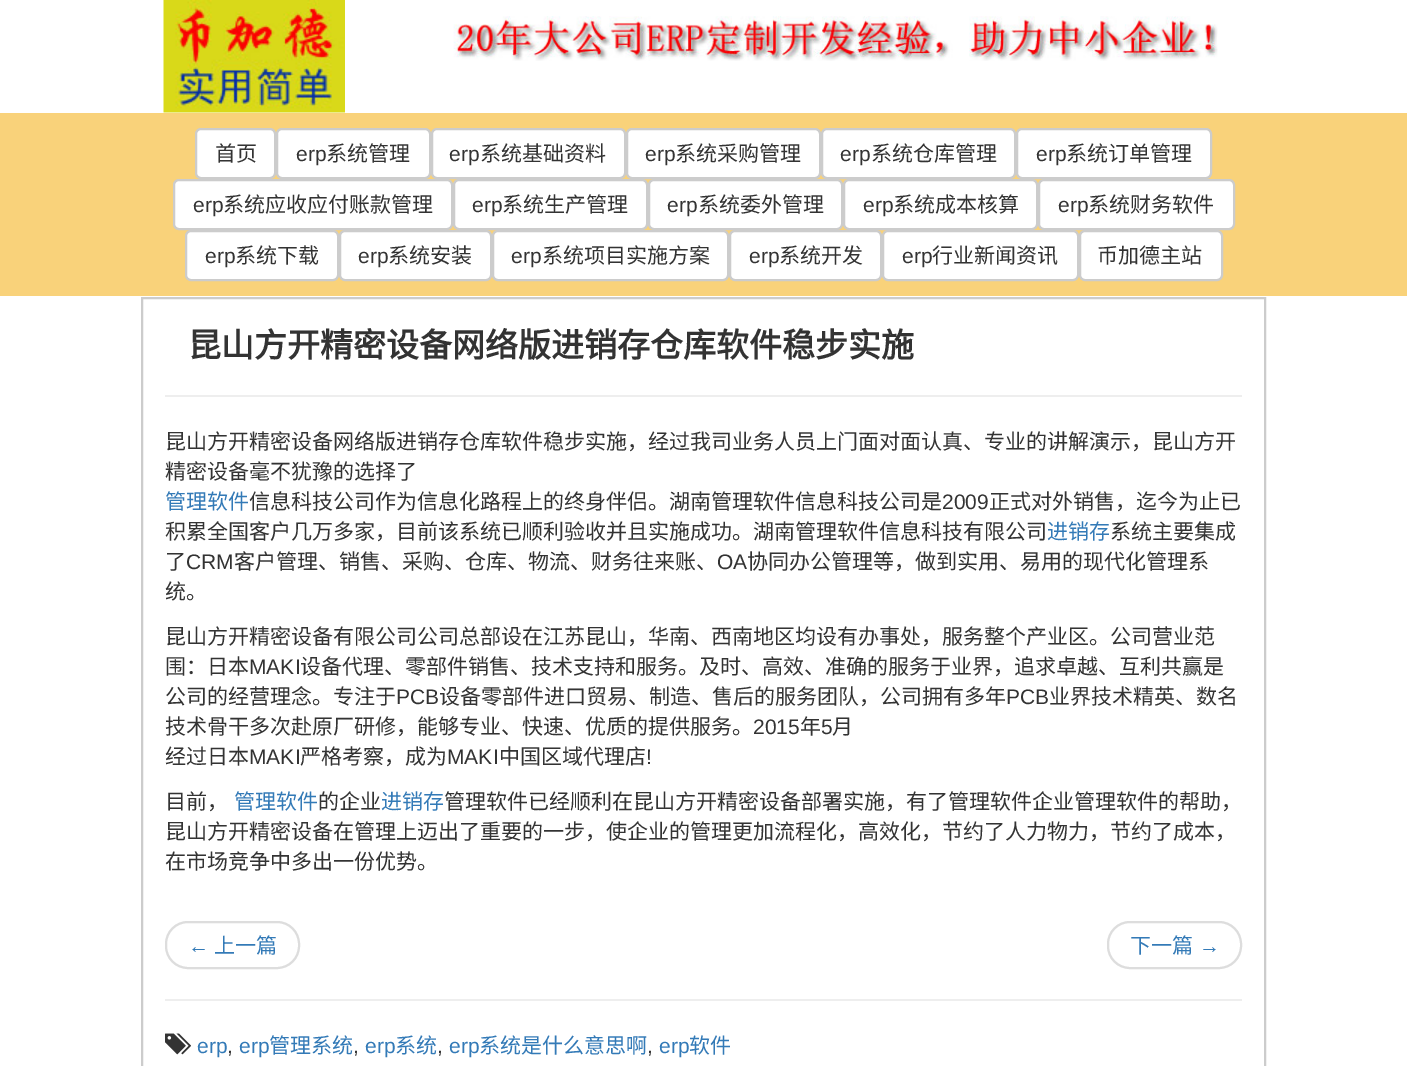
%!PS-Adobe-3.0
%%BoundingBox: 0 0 1407 1066
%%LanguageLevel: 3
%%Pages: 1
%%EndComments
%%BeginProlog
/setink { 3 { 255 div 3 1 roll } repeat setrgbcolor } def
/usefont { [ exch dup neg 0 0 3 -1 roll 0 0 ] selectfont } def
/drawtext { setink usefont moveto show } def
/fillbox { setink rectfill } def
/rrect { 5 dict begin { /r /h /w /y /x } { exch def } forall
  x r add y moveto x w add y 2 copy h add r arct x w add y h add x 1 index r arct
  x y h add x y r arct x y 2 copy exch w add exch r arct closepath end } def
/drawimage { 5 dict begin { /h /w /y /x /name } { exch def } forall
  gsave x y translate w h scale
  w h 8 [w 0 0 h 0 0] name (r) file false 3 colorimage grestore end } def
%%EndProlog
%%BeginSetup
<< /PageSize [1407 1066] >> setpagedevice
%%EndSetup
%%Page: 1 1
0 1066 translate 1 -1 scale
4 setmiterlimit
0 0 1407 1066 255 255 255 fillbox
(assets/img1.rgb) 163 0 182 113 drawimage
(assets/img2.rgb) 453 16 765 45 drawimage
0 113 1407 183 249 210 122 fillbox
255 255 255 setink
196 129 79 49 5 rrect gsave fill grestore
204 204 204 setink
2 setlinewidth
stroke
(首页) 215 161 /NotoSansCJKSC-Regular 21 51 51 51 drawtext
255 255 255 setink
277 129 153 49 5 rrect gsave fill grestore
204 204 204 setink
stroke
(erp) 296 161 /LiberationSans-Regular 21 51 51 51 drawtext
(系统管理) 326 161 /NotoSansCJKSC-Regular 21 51 51 51 drawtext
255 255 255 setink
432 129 193 49 5 rrect gsave fill grestore
204 204 204 setink
stroke
(erp) 449 161 /LiberationSans-Regular 21 51 51 51 drawtext
(系统基础资料) 480 161 /NotoSansCJKSC-Regular 21 51 51 51 drawtext
255 255 255 setink
627 129 193 49 5 rrect gsave fill grestore
204 204 204 setink
stroke
(erp) 645 161 /LiberationSans-Regular 21 51 51 51 drawtext
(系统采购管理) 675 161 /NotoSansCJKSC-Regular 21 51 51 51 drawtext
255 255 255 setink
822 129 193 49 5 rrect gsave fill grestore
204 204 204 setink
stroke
(erp) 840 161 /LiberationSans-Regular 21 51 51 51 drawtext
(系统仓库管理) 871 161 /NotoSansCJKSC-Regular 21 51 51 51 drawtext
255 255 255 setink
1017 129 194 49 5 rrect gsave fill grestore
204 204 204 setink
stroke
(erp) 1036 161 /LiberationSans-Regular 21 51 51 51 drawtext
(系统订单管理) 1066 161 /NotoSansCJKSC-Regular 21 51 51 51 drawtext
255 255 255 setink
174 180 278 49 5 rrect gsave fill grestore
204 204 204 setink
stroke
(erp) 193 212 /LiberationSans-Regular 21 51 51 51 drawtext
(系统应收应付账款管理) 223 212 /NotoSansCJKSC-Regular 21 51 51 51 drawtext
255 255 255 setink
454 180 193 49 5 rrect gsave fill grestore
204 204 204 setink
stroke
(erp) 472 212 /LiberationSans-Regular 21 51 51 51 drawtext
(系统生产管理) 502 212 /NotoSansCJKSC-Regular 21 51 51 51 drawtext
255 255 255 setink
649 180 193 49 5 rrect gsave fill grestore
204 204 204 setink
stroke
(erp) 667 212 /LiberationSans-Regular 21 51 51 51 drawtext
(系统委外管理) 698 212 /NotoSansCJKSC-Regular 21 51 51 51 drawtext
255 255 255 setink
844 180 193 49 5 rrect gsave fill grestore
204 204 204 setink
stroke
(erp) 863 212 /LiberationSans-Regular 21 51 51 51 drawtext
(系统成本核算) 893 212 /NotoSansCJKSC-Regular 21 51 51 51 drawtext
255 255 255 setink
1039 180 195 49 5 rrect gsave fill grestore
204 204 204 setink
stroke
(erp) 1058 212 /LiberationSans-Regular 21 51 51 51 drawtext
(系统财务软件) 1088 212 /NotoSansCJKSC-Regular 21 51 51 51 drawtext
255 255 255 setink
186 231 152 49 5 rrect gsave fill grestore
204 204 204 setink
stroke
(erp) 205 263 /LiberationSans-Regular 21 51 51 51 drawtext
(系统下载) 235 263 /NotoSansCJKSC-Regular 21 51 51 51 drawtext
255 255 255 setink
340 231 151 49 5 rrect gsave fill grestore
204 204 204 setink
stroke
(erp) 358 263 /LiberationSans-Regular 21 51 51 51 drawtext
(系统安装) 388 263 /NotoSansCJKSC-Regular 21 51 51 51 drawtext
255 255 255 setink
493 231 235 49 5 rrect gsave fill grestore
204 204 204 setink
stroke
(erp) 511 263 /LiberationSans-Regular 21 51 51 51 drawtext
(系统项目实施方案) 542 263 /NotoSansCJKSC-Regular 21 51 51 51 drawtext
255 255 255 setink
730 231 151 49 5 rrect gsave fill grestore
204 204 204 setink
stroke
(erp) 749 263 /LiberationSans-Regular 21 51 51 51 drawtext
(系统开发) 779 263 /NotoSansCJKSC-Regular 21 51 51 51 drawtext
255 255 255 setink
883 231 195 49 5 rrect gsave fill grestore
204 204 204 setink
stroke
(erp) 902 263 /LiberationSans-Regular 21 51 51 51 drawtext
(行业新闻资讯) 932 263 /NotoSansCJKSC-Regular 21 51 51 51 drawtext
255 255 255 setink
1080 231 142 49 5 rrect gsave fill grestore
204 204 204 setink
stroke
(币加德主站) 1097 263 /NotoSansCJKSC-Regular 21 51 51 51 drawtext
204 204 204 setink
142 298 1123 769 rectstroke
(昆山方开精密设备网络版进销存仓库软件稳步实施) 188 357 /NotoSansCJKSC-Bold 33 51 51 51 drawtext
165 395 1077 2 238 238 238 fillbox
(昆山方开精密设备网络版进销存仓库软件稳步实施，经过我司业务人员上门面对面认真、专业的讲解演示，昆山方开) 165 449 /NotoSansCJKSC-Regular 21 51 51 51 drawtext
(精密设备毫不犹豫的选择了) 165 479 /NotoSansCJKSC-Regular 21 51 51 51 drawtext
(管理软件) 165 509 /NotoSansCJKSC-Regular 21 51 122 183 drawtext
(信息科技公司作为信息化路程上的终身伴侣。湖南管理软件信息科技公司是) 249 509 /NotoSansCJKSC-Regular 21 51 51 51 drawtext
(2009) 942 509 /LiberationSans-Regular 21 51 51 51 drawtext
(正式对外销售，迄今为止已) 989 509 /NotoSansCJKSC-Regular 21 51 51 51 drawtext
(积累全国客户几万多家，目前该系统已顺利验收并且实施成功。湖南管理软件信息科技有限公司) 165 539 /NotoSansCJKSC-Regular 21 51 51 51 drawtext
(进销存) 1047 539 /NotoSansCJKSC-Regular 21 51 122 183 drawtext
(系统主要集成) 1110 539 /NotoSansCJKSC-Regular 21 51 51 51 drawtext
(了) 165 569 /NotoSansCJKSC-Regular 21 51 51 51 drawtext
(CRM) 186 569 /LiberationSans-Regular 21 51 51 51 drawtext
(客户管理、销售、采购、仓库、物流、财务往来账、) 234 569 /NotoSansCJKSC-Regular 21 51 51 51 drawtext
(OA) 717 569 /LiberationSans-Regular 21 51 51 51 drawtext
(协同办公管理等，做到实用、易用的现代化管理系) 747 569 /NotoSansCJKSC-Regular 21 51 51 51 drawtext
(统。) 165 599 /NotoSansCJKSC-Regular 21 51 51 51 drawtext
(昆山方开精密设备有限公司公司总部设在江苏昆山，华南、西南地区均设有办事处，服务整个产业区。公司营业范) 165 644 /NotoSansCJKSC-Regular 21 51 51 51 drawtext
(围：日本) 165 674 /NotoSansCJKSC-Regular 21 51 51 51 drawtext
(MAKI) 249 674 /LiberationSans-Regular 21 51 51 51 drawtext
(设备代理、零部件销售、技术支持和服务。及时、高效、准确的服务于业界，追求卓越、互利共赢是) 300 674 /NotoSansCJKSC-Regular 21 51 51 51 drawtext
(公司的经营理念。专注于) 165 704 /NotoSansCJKSC-Regular 21 51 51 51 drawtext
(PCB) 396 704 /LiberationSans-Regular 21 51 51 51 drawtext
(设备零部件进口贸易、制造、售后的服务团队，公司拥有多年) 439 704 /NotoSansCJKSC-Regular 21 51 51 51 drawtext
(PCB) 1006 704 /LiberationSans-Regular 21 51 51 51 drawtext
(业界技术精英、数名) 1049 704 /NotoSansCJKSC-Regular 21 51 51 51 drawtext
(技术骨干多次赴原厂研修，能够专业、快速、优质的提供服务。) 165 734 /NotoSansCJKSC-Regular 21 51 51 51 drawtext
(2015) 753 734 /LiberationSans-Regular 21 51 51 51 drawtext
(年) 800 734 /NotoSansCJKSC-Regular 21 51 51 51 drawtext
(5) 821 734 /LiberationSans-Regular 21 51 51 51 drawtext
(月) 832 734 /NotoSansCJKSC-Regular 21 51 51 51 drawtext
(经过日本) 165 764 /NotoSansCJKSC-Regular 21 51 51 51 drawtext
(MAKI) 249 764 /LiberationSans-Regular 21 51 51 51 drawtext
(严格考察，成为) 300 764 /NotoSansCJKSC-Regular 21 51 51 51 drawtext
(MAKI) 447 764 /LiberationSans-Regular 21 51 51 51 drawtext
(中国区域代理店) 499 764 /NotoSansCJKSC-Regular 21 51 51 51 drawtext
(!) 646 764 /LiberationSans-Regular 21 51 51 51 drawtext
(目前，) 165 809 /NotoSansCJKSC-Regular 21 51 51 51 drawtext
(管理软件) 234 809 /NotoSansCJKSC-Regular 21 51 122 183 drawtext
(的企业) 318 809 /NotoSansCJKSC-Regular 21 51 51 51 drawtext
(进销存) 381 809 /NotoSansCJKSC-Regular 21 51 122 183 drawtext
(管理软件已经顺利在昆山方开精密设备部署实施，有了管理软件企业管理软件的帮助，) 444 809 /NotoSansCJKSC-Regular 21 51 51 51 drawtext
(昆山方开精密设备在管理上迈出了重要的一步，使企业的管理更加流程化，高效化，节约了人力物力，节约了成本，) 165 839 /NotoSansCJKSC-Regular 21 51 51 51 drawtext
(在市场竞争中多出一份优势。) 165 869 /NotoSansCJKSC-Regular 21 51 51 51 drawtext
221 221 221 setink
166 922 133 46 22 rrect stroke
(←) 188 953 /LiberationSans-Regular 21 51 122 183 drawtext
(上一篇) 214 953 /NotoSansCJKSC-Regular 21 51 122 183 drawtext
221 221 221 setink
1108 922 133 46 22 rrect stroke
(下一篇) 1130 953 /NotoSansCJKSC-Regular 21 51 122 183 drawtext
(→) 1199 953 /LiberationSans-Regular 21 51 122 183 drawtext
165 999 1077 2 238 238 238 fillbox
(assets/img3.rgb) 165 1033 26 22 drawimage
(erp) 197 1053 /LiberationSans-Regular 21 51 122 183 drawtext
(,) 227 1053 /LiberationSans-Regular 21 51 51 51 drawtext
(erp) 239 1053 /LiberationSans-Regular 21 51 122 183 drawtext
(管理系统) 269 1053 /NotoSansCJKSC-Regular 21 51 122 183 drawtext
(,) 353 1053 /LiberationSans-Regular 21 51 51 51 drawtext
(erp) 365 1053 /LiberationSans-Regular 21 51 122 183 drawtext
(系统) 395 1053 /NotoSansCJKSC-Regular 21 51 122 183 drawtext
(,) 437 1053 /LiberationSans-Regular 21 51 51 51 drawtext
(erp) 449 1053 /LiberationSans-Regular 21 51 122 183 drawtext
(系统是什么意思啊) 479 1053 /NotoSansCJKSC-Regular 21 51 122 183 drawtext
(,) 647 1053 /LiberationSans-Regular 21 51 51 51 drawtext
(erp) 659 1053 /LiberationSans-Regular 21 51 122 183 drawtext
(软件) 689 1053 /NotoSansCJKSC-Regular 21 51 122 183 drawtext
showpage
%%EOF
